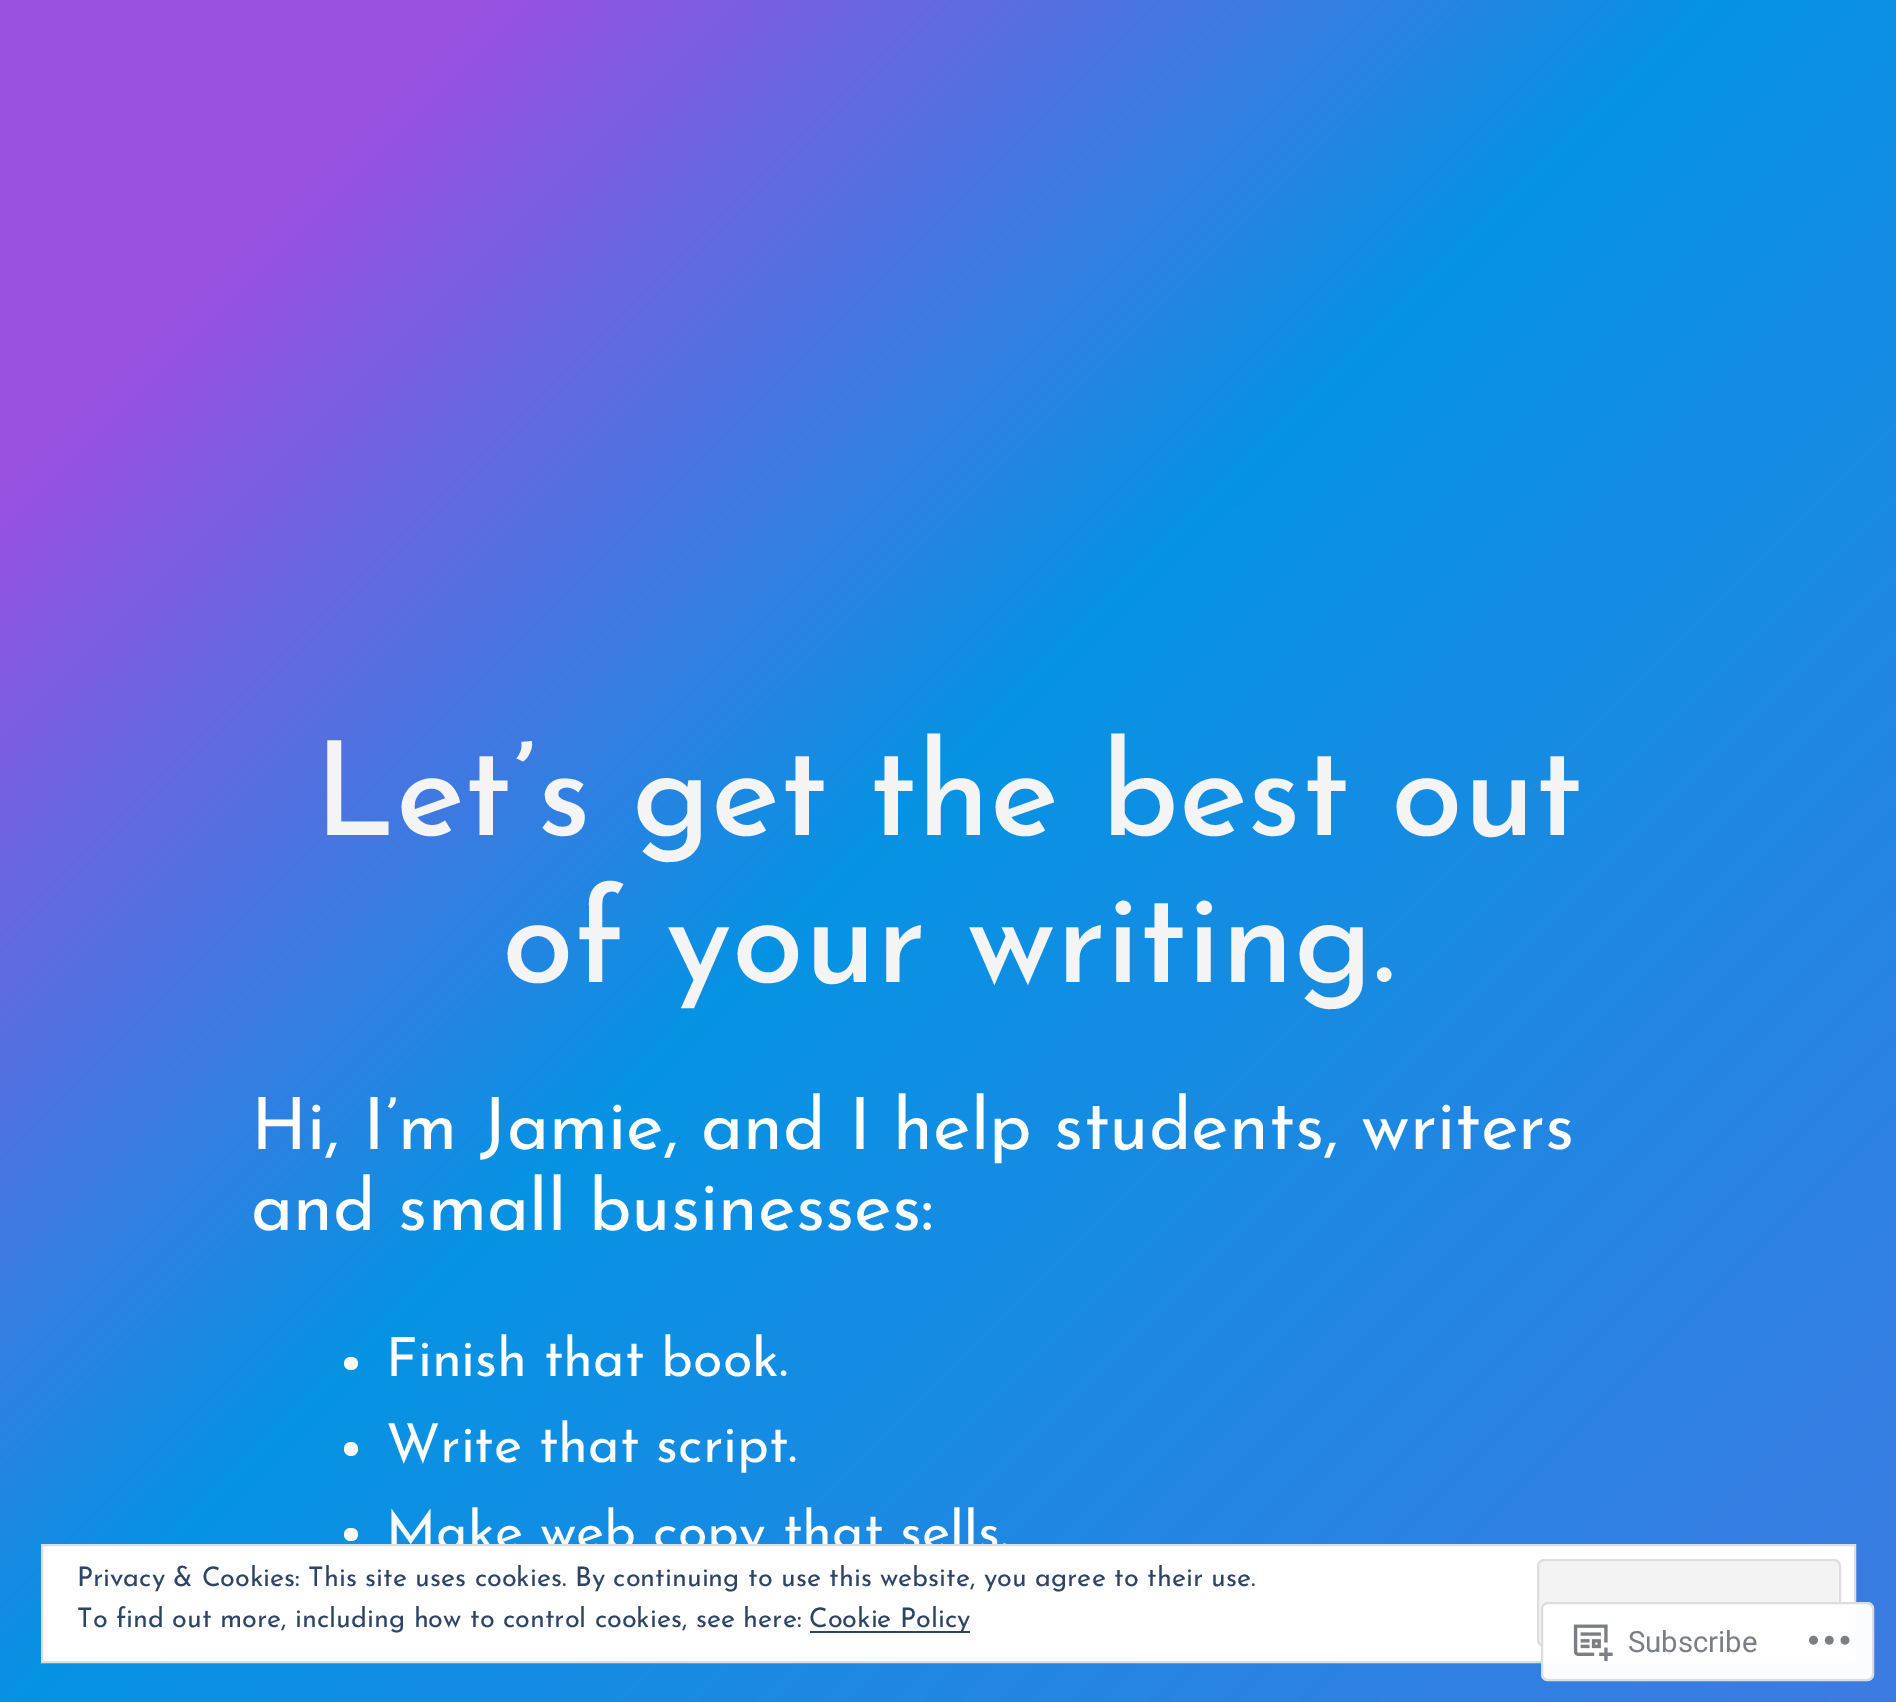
%!PS-Adobe-3.0
%%BoundingBox: 0 0 1896 1702
%%LanguageLevel: 3
%%Pages: 1
%%EndComments
%%BeginProlog
/setink { 3 { 255 div 3 1 roll } repeat setrgbcolor } def
/usefont { [ exch dup neg 0 0 3 -1 roll 0 0 ] selectfont } def
/drawtext { setink usefont moveto show } def
/fillbox { setink rectfill } def
/setalpha { dup .setfillconstantalpha .setstrokeconstantalpha } def
/disc { newpath 0 360 arc closepath } def
/rrect { 5 dict begin { /r /h /w /y /x } { exch def } forall
  x r add y moveto x w add y 2 copy h add r arct x w add y h add x 1 index r arct
  x y h add x y r arct x y 2 copy exch w add exch r arct closepath end } def
/drawimage { 5 dict begin { /h /w /y /x /name } { exch def } forall
  gsave x y translate w h scale
  w h 8 [w 0 0 h 0 0] name (r) file false 3 colorimage grestore end } def
%%EndProlog
%%BeginSetup
<< /PageSize [1896 1702] /PageUsesTransparency true >> setpagedevice
%%EndSetup
%%Page: 1 1
0 .pushpdf14devicefilter
0 1702 translate 1 -1 scale
4 setmiterlimit
0 0 1896 1702 255 255 255 fillbox
gsave 0 0 moveto 1896 0 lineto 1896 1702 lineto 0 1702 lineto closepath clip newpath
<< /ShadingType 2 /ColorSpace /DeviceRGB /Coords [-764 764 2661 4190] /Extend [true true] /Function << /FunctionType 3 /Domain [0 1] /Functions [<< /FunctionType 2 /Domain [0 1] /C0 [0.608 0.318 0.878] /C1 [0.608 0.318 0.878] /N 1 >> << /FunctionType 2 /Domain [0 1] /C0 [0.608 0.318 0.878] /C1 [0.024 0.576 0.89] /N 1 >> << /FunctionType 2 /Domain [0 1] /C0 [0.024 0.576 0.89] /C1 [0.608 0.318 0.878] /N 1 >>] /Bounds [0.07 0.25] /Encode [0 1 0 1 0 1] >> >> shfill grestore
(Let’s get the best out) 314 835 /JosefinSans-Medium 130.5 244 244 244 drawtext
(of your writing.) 502 982 /JosefinSans-Medium 130.5 244 244 244 drawtext
(Hi, I’m Jamie, and I help students, writers) 251 1149 /JosefinSans-Regular 72 255 255 255 drawtext
(and small businesses:) 251 1230 /JosefinSans-Regular 72 255 255 255 drawtext
344 1357 14 13 6.5 rrect fill
(Finish that book.) 386 1376 /JosefinSans-Regular 54 255 255 255 drawtext
351 1449 7 disc fill
(Write that script.) 386 1462 /JosefinSans-Regular 54 255 255 255 drawtext
344 1528 14 13 6.5 rrect fill
(Make web copy that sells.) 386 1549 /JosefinSans-Regular 54 255 255 255 drawtext
42 1545 moveto 1855 1545 lineto 1855 1662 lineto 42 1662 lineto closepath gsave fill grestore
222 222 222 setink
2 setlinewidth
stroke
(Privacy & Cookies: This site uses cookies. By continuing to use this website, you agree to their use.) 77 1586 /JosefinSans-Regular 27 46 68 103 drawtext
243 243 243 setink
1538 1560 302 86 6 rrect gsave fill grestore
222 222 222 setink
stroke
(To find out more, including how to control cookies, see here:) 77 1627 /JosefinSans-Regular 27 46 68 103 drawtext
810 1631 160 2 46 68 103 fillbox
(Cookie Policy) 809 1627 /JosefinSans-Regular 27 46 68 103 drawtext
0.98 setalpha
255 255 255 setink
1541 1602 333 79 7 rrect fill
220 220 222 setink
1542 1603 331 77 6 rrect stroke
1 setalpha
(assets/img1.rgb) 1573 1624 40 38 drawimage
(Subscribe) 1628 1652 /Roboto-Regular 29.25 123 127 132 drawtext
(assets/img2.rgb) 1809 1635 41 10 drawimage
.poppdf14devicefilter showpage
%%EOF
